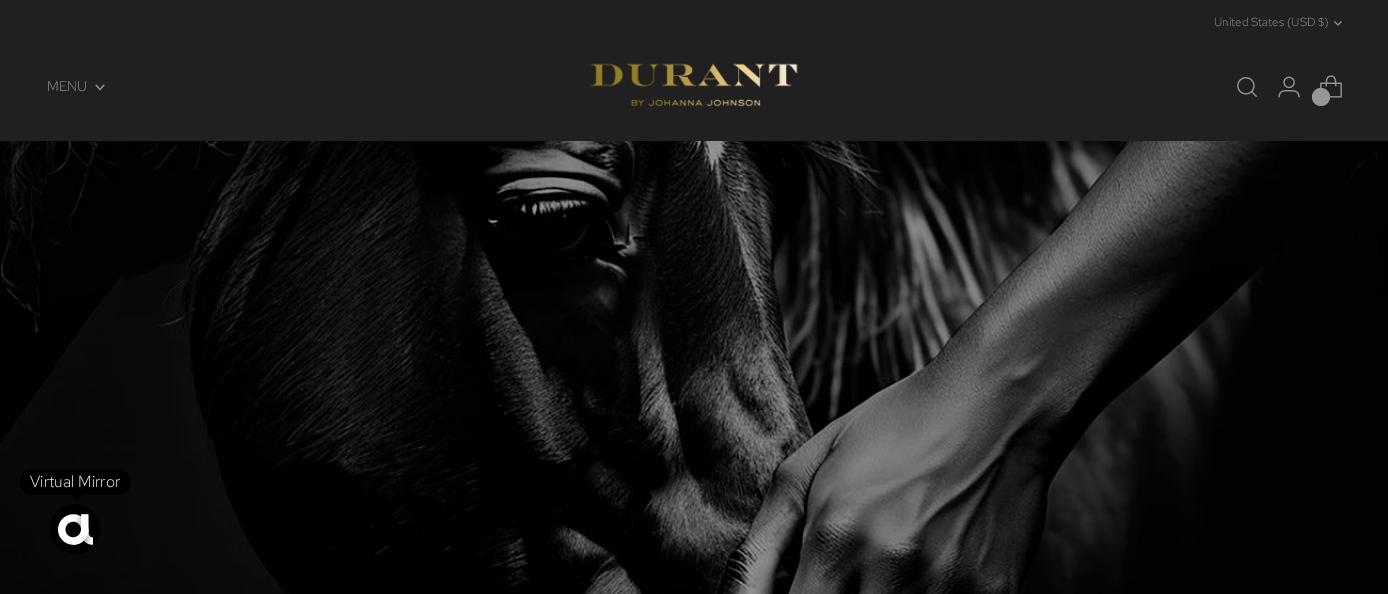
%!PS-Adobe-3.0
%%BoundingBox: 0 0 1388 594
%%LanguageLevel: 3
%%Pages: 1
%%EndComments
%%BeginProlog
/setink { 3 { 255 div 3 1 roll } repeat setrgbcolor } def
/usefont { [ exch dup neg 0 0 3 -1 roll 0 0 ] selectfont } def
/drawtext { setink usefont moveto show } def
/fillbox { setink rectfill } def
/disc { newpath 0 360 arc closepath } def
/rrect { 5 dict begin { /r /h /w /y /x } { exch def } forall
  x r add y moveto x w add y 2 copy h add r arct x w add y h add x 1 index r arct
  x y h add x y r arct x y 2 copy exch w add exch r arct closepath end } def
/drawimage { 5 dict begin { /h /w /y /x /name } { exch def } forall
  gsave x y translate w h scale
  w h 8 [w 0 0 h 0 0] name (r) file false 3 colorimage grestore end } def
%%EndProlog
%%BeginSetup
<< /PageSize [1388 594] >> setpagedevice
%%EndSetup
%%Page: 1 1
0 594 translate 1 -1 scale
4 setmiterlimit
0 0 1388 594 32 32 32 fillbox
(United States \(USD $\)) 1214 26 /RedHatText-Light 11.75 150 150 150 drawtext
0.9 setlinewidth
1334.5 21.5 moveto 1338 25 lineto 1341.5 21.5 lineto stroke
(MENU) 47 91 /RedHatText-Light 14 150 150 150 drawtext
1.1 setlinewidth
96 85 moveto 100 89.5 lineto 104 85 lineto stroke
(assets/img1.rgb) 590 63 208 44 drawimage
(assets/img2.rgb) 1237 77 21 21 drawimage
(assets/img3.rgb) 1278 76 22 22 drawimage
(assets/img4.rgb) 1320 75 22 23 drawimage
1321 97 9 disc fill
(assets/img5.rgb) 0 141 1388 453 drawimage
0 0 0 setink
75 529 25 disc fill
20 469 111 26 13 rrect fill
(Virtual Mirror) 30 487 /RedHatText-Light 16 255 255 255 drawtext
0 0 0 setink
80 492 moveto 82.5 495 lineto 77 500.5 lineto 74 498 lineto closepath fill
74 492 moveto 80 498 lineto 77 500.5 lineto 71.5 495 lineto closepath fill
(assets/img6.rgb) 58 514 35 31 drawimage
showpage
%%EOF
